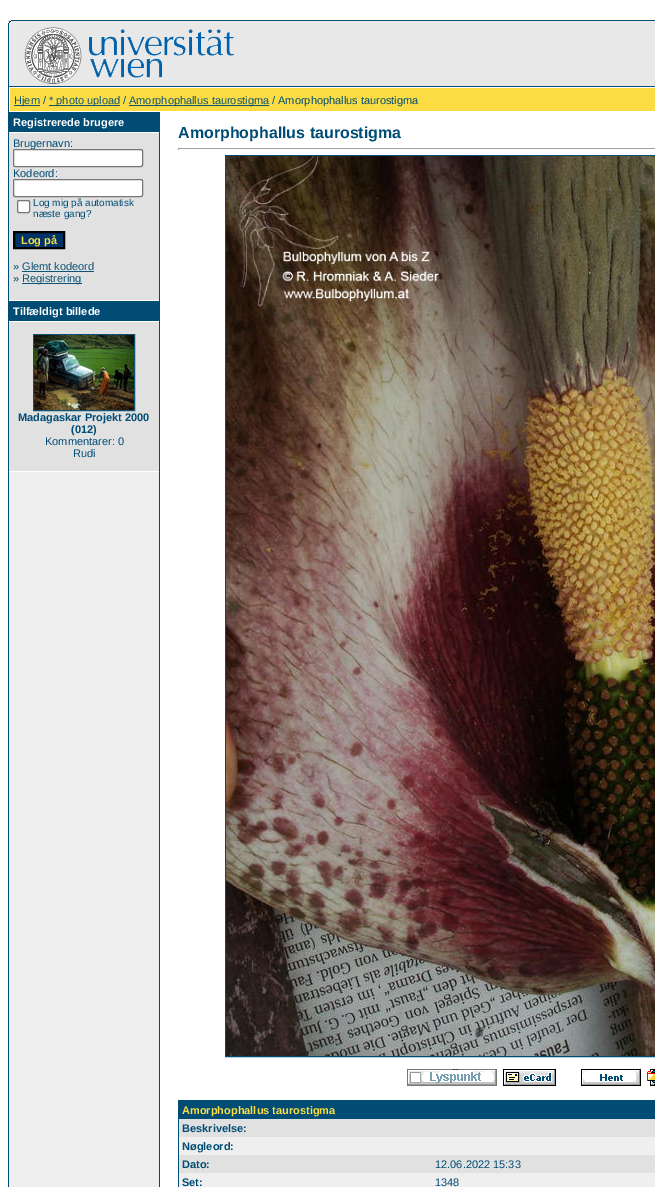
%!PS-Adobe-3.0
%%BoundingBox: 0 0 655 1187
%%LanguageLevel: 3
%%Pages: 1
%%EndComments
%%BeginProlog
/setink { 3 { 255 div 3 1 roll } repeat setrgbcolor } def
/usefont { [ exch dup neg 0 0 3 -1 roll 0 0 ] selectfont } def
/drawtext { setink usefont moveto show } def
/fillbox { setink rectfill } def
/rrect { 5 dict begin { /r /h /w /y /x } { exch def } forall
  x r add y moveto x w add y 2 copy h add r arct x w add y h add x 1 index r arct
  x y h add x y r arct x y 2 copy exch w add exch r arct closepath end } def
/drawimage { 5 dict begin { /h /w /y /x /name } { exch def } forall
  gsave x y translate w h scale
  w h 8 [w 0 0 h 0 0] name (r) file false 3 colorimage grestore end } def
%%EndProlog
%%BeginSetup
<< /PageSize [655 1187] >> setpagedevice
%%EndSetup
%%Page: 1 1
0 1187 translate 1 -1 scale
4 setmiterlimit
0 0 655 1187 255 255 255 fillbox
8 20 647 66 232 232 232 fillbox
(assets/img1.rgb) 8 20 6 6 drawimage
14 20 641 1 0 76 117 fillbox
8 26 1 60 0 76 117 fillbox
(assets/img2.rgb) 24 27 211 57 drawimage
8 86 647 1101 0 76 117 fillbox
9 87 646 1100 255 255 255 fillbox
10 88 645 23 252 220 67 fillbox
14 105 26 1 15 84 117 fillbox
(Hjem) 14 104 /LiberationSans-Regular 11 15 84 117 drawtext
(/) 43 104 /LiberationSans-Regular 11 0 76 117 drawtext
49 105 71 1 15 84 117 fillbox
(* photo upload) 49 104 /LiberationSans-Regular 11 15 84 117 drawtext
(/) 123 104 /LiberationSans-Regular 11 0 76 117 drawtext
129 105 140 1 15 84 117 fillbox
(Amorphophallus taurostigma) 129 104 /LiberationSans-Regular 11 15 84 117 drawtext
(/ Amorphophallus taurostigma) 272 104 /LiberationSans-Regular 11 0 76 117 drawtext
9 472 150 715 239 239 239 fillbox
9 112 150 20 0 76 117 fillbox
(Registrerede brugere) 13 126 /LiberationSans-Bold 11 255 255 255 drawtext
9 133 150 167 225 225 225 fillbox
(Brugernavn:) 13 147 /LiberationSans-Regular 11 0 76 117 drawtext
255 255 255 setink
13.5 149.5 129 17 1.5 rrect gsave fill grestore
118 118 118 setink
stroke
(Kodeord:) 13 177 /LiberationSans-Regular 11 0 76 117 drawtext
255 255 255 setink
13.5 179.5 129 17 1.5 rrect gsave fill grestore
118 118 118 setink
stroke
255 255 255 setink
17.5 200.5 12 12 1.5 rrect gsave fill grestore
118 118 118 setink
stroke
(Log mig på automatisk) 33 206 /LiberationSans-Regular 10 0 76 117 drawtext
(næste gang?) 33 217 /LiberationSans-Regular 10 0 76 117 drawtext
0 51 102 setink
14 232 moveto 64 232 lineto 64 248 lineto 14 248 lineto closepath gsave fill grestore
0 0 0 setink
2 setlinewidth
stroke
(Log på) 21 244 /LiberationSans-Bold 11 252 220 67 drawtext
(») 13 270 /LiberationSans-Regular 11 0 76 117 drawtext
(Glemt kodeord) 22 270 /LiberationSans-Regular 11 15 84 117 drawtext
22 271 72 1 15 84 117 fillbox
(») 13 282 /LiberationSans-Regular 11 0 76 117 drawtext
22 283 60 1 15 84 117 fillbox
(Registrering) 22 282 /LiberationSans-Regular 11 15 84 117 drawtext
9 301 150 20 0 76 117 fillbox
(Tilfældigt billede) 13 315 /LiberationSans-Bold 11 255 255 255 drawtext
9 322 150 149 225 225 225 fillbox
15 84 117 setink
1 setlinewidth
33.5 334.5 101 76 rectstroke
(assets/img3.rgb) 34 335 100 75 drawimage
(Madagaskar Projekt 2000) 18 421 /LiberationSans-Bold 11 0 76 117 drawtext
(\(012\)) 71 433 /LiberationSans-Bold 11 0 76 117 drawtext
(Kommentarer: 0) 45 445 /LiberationSans-Regular 11 0 76 117 drawtext
(Rudi) 73 457 /LiberationSans-Regular 11 0 76 117 drawtext
159 112 1 1075 0 76 117 fillbox
(Amorphophallus taurostigma) 178 138 /LiberationSans-Bold 16 0 76 117 drawtext
178 148 477 1 159 159 159 fillbox
178 148 1 2 159 159 159 fillbox
0 76 117 setink
225.5 155.5 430 901 rectstroke
(assets/img4.rgb) 226 156 429 900 drawimage
(assets/img5.rgb) 407 1069 90 17 drawimage
(assets/img6.rgb) 503 1069 53 17 drawimage
(assets/img7.rgb) 581 1069 60 17 drawimage
(assets/img8.rgb) 647 1069 8 17 drawimage
178 1100 477 87 0 76 117 fillbox
(Amorphophallus taurostigma) 182 1114 /LiberationSans-Bold 11 252 220 67 drawtext
179 1119 476 18 225 225 225 fillbox
(Beskrivelse:) 182 1132 /LiberationSans-Bold 11 0 76 117 drawtext
179 1137 476 18 239 239 239 fillbox
(Nøgleord:) 182 1150 /LiberationSans-Bold 11 0 76 117 drawtext
179 1155 476 18 225 225 225 fillbox
(Dato:) 182 1168 /LiberationSans-Bold 11 0 76 117 drawtext
(12.06.2022 15:33) 435 1168 /LiberationSans-Regular 11 0 76 117 drawtext
179 1173 476 14 239 239 239 fillbox
(Set:) 182 1186 /LiberationSans-Bold 11 0 76 117 drawtext
(1348) 435 1186 /LiberationSans-Regular 11 0 76 117 drawtext
showpage
%%EOF
